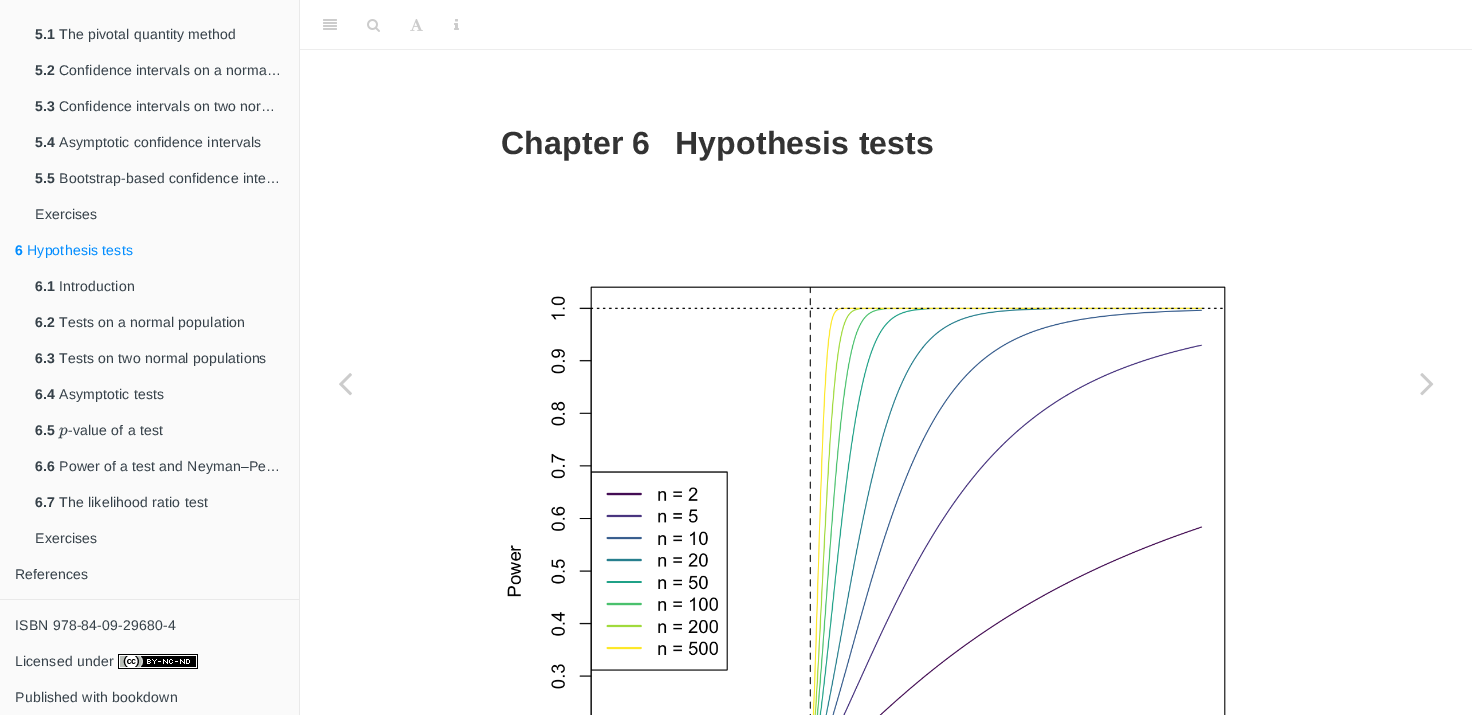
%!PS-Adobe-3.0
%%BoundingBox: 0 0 1472 715
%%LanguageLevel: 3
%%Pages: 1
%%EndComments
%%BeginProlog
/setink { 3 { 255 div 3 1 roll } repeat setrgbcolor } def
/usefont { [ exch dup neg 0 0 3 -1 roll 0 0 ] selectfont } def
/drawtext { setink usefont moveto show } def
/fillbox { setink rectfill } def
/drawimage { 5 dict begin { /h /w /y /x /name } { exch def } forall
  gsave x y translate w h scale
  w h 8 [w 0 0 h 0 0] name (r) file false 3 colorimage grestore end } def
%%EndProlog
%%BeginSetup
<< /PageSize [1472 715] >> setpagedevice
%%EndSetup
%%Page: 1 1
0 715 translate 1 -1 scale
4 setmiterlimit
0 0 1472 715 255 255 255 fillbox
0 0 299 715 250 250 250 fillbox
299 0 1 715 233 233 233 fillbox
/LiberationSans-Bold 14 usefont
54 65 73 setink
35 39 moveto 0.2 0 (5.1) ashow
/LiberationSans-Regular 14 usefont
59 39 moveto 0.2 0 (The pivotal quantity method) ashow
/LiberationSans-Bold 14 usefont
35 75 moveto 0.2 0 (5.2) ashow
/LiberationSans-Regular 14 usefont
59 75 moveto 0.2 0 (Confidence intervals on a norma…) ashow
/LiberationSans-Bold 14 usefont
35 111 moveto 0.2 0 (5.3) ashow
/LiberationSans-Regular 14 usefont
59 111 moveto 0.2 0 (Confidence intervals on two nor…) ashow
/LiberationSans-Bold 14 usefont
35 147 moveto 0.2 0 (5.4) ashow
/LiberationSans-Regular 14 usefont
59 147 moveto 0.2 0 (Asymptotic confidence intervals) ashow
/LiberationSans-Bold 14 usefont
35 183 moveto 0.2 0 (5.5) ashow
/LiberationSans-Regular 14 usefont
59 183 moveto 0.2 0 (Bootstrap-based confidence inte…) ashow
35 219 moveto 0.2 0 (Exercises) ashow
/LiberationSans-Bold 14 usefont
0 140 255 setink
15 255 moveto 0.2 0 (6) ashow
/LiberationSans-Regular 14 usefont
27 255 moveto 0.2 0 (Hypothesis tests) ashow
/LiberationSans-Bold 14 usefont
54 65 73 setink
35 291 moveto 0.2 0 (6.1) ashow
/LiberationSans-Regular 14 usefont
59 291 moveto 0.2 0 (Introduction) ashow
/LiberationSans-Bold 14 usefont
35 327 moveto 0.2 0 (6.2) ashow
/LiberationSans-Regular 14 usefont
59 327 moveto 0.2 0 (Tests on a normal population) ashow
/LiberationSans-Bold 14 usefont
35 363 moveto 0.2 0 (6.3) ashow
/LiberationSans-Regular 14 usefont
59 363 moveto 0.2 0 (Tests on two normal populations) ashow
/LiberationSans-Bold 14 usefont
35 399 moveto 0.2 0 (6.4) ashow
/LiberationSans-Regular 14 usefont
59 399 moveto 0.2 0 (Asymptotic tests) ashow
/LiberationSans-Bold 14 usefont
35 435 moveto 0.2 0 (6.5) ashow
(p) 59 435 /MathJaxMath-Italic 17 54 65 73 drawtext
/LiberationSans-Regular 14 usefont
68 435 moveto 0.2 0 (-value of a test) ashow
/LiberationSans-Bold 14 usefont
35 471 moveto 0.2 0 (6.6) ashow
/LiberationSans-Regular 14 usefont
59 471 moveto 0.2 0 (Power of a test and Neyman–Pe…) ashow
/LiberationSans-Bold 14 usefont
35 507 moveto 0.2 0 (6.7) ashow
/LiberationSans-Regular 14 usefont
59 507 moveto 0.2 0 (The likelihood ratio test) ashow
35 543 moveto 0.2 0 (Exercises) ashow
15 579 moveto 0.2 0 (References) ashow
0 599 299 1 233 233 233 fillbox
54 65 73 setink
15 630 moveto 0.2 0 (ISBN 978-84-09-29680-4) ashow
15 666 moveto 0.2 0 (Licensed under) ashow
(assets/img1.rgb) 118 654 80 15 drawimage
15 702 moveto 0.2 0 (Published with bookdown) ashow
300 49 1172 1 237 237 237 fillbox
(assets/img2.rgb) 323 19 14 11 drawimage
(assets/img3.rgb) 367 19 13 13 drawimage
(assets/img4.rgb) 410 19 13 12 drawimage
(assets/img5.rgb) 454 19 5 11 drawimage
/LiberationSans-Bold 32 usefont
51 51 51 setink
501 154 moveto 0.2 0 (Chapter 6) ashow
675 154 moveto 0.2 0 (Hypothesis tests) ashow
(assets/img6.rgb) 507 286 719 429 drawimage
(assets/img7.rgb) 339 373 13 23 drawimage
(assets/img8.rgb) 1420 373 14 23 drawimage
showpage
%%EOF
